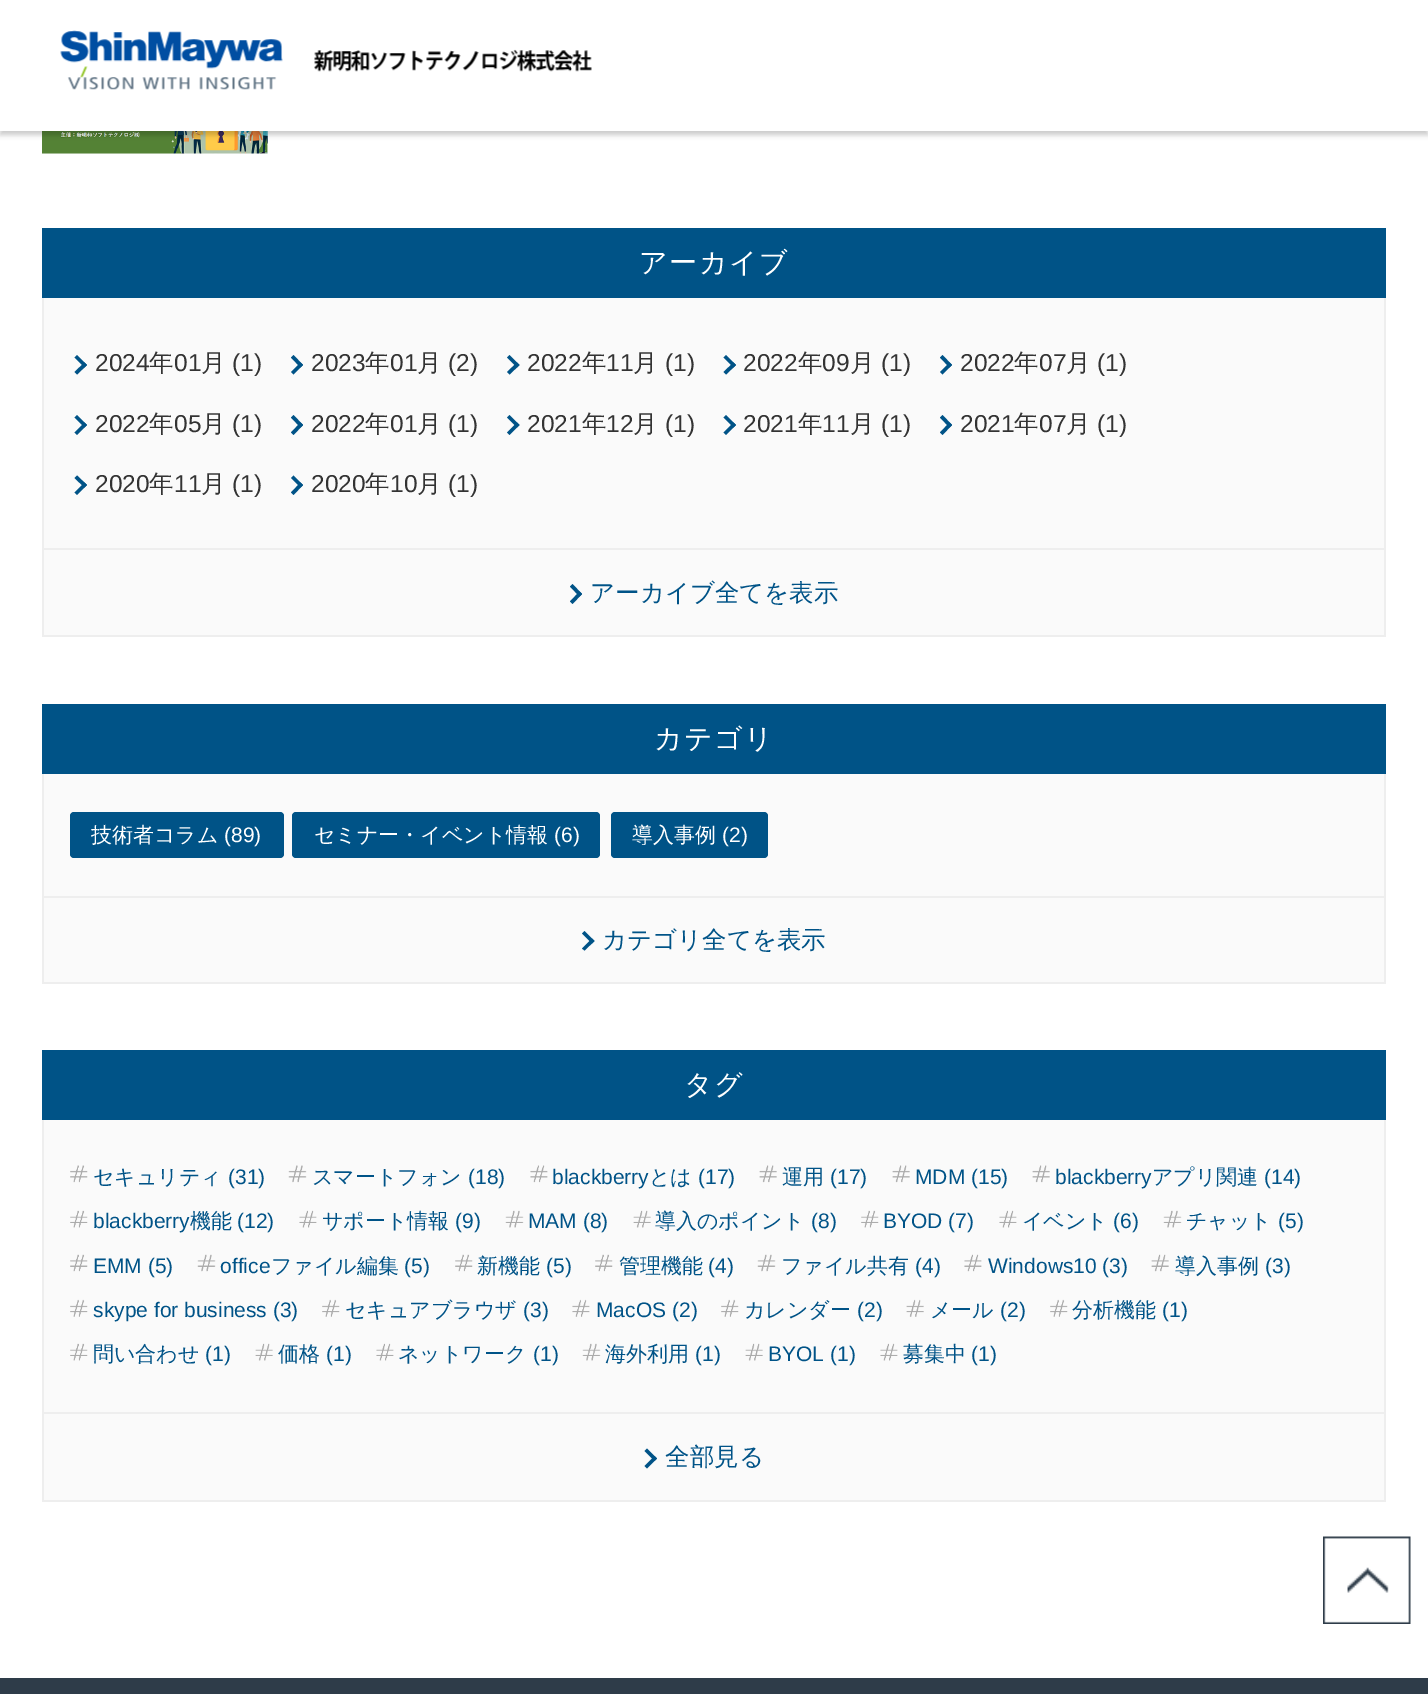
%!PS-Adobe-3.0
%%BoundingBox: 0 0 1428 1694
%%LanguageLevel: 3
%%Pages: 1
%%EndComments
%%BeginProlog
/setink { 3 { 255 div 3 1 roll } repeat setrgbcolor } def
/usefont { [ exch dup neg 0 0 3 -1 roll 0 0 ] selectfont } def
/drawtext { setink usefont moveto show } def
/fillbox { setink rectfill } def
/setalpha { dup .setfillconstantalpha .setstrokeconstantalpha } def
/rrect { 5 dict begin { /r /h /w /y /x } { exch def } forall
  x r add y moveto x w add y 2 copy h add r arct x w add y h add x 1 index r arct
  x y h add x y r arct x y 2 copy exch w add exch r arct closepath end } def
/softshadow { 12 dict begin { /a /b /q /h /w /y /x } { exch def } forall gsave /was 0 def
  9 -2 -9 { dup b mul 4 div /e exch def 1 sub .425 mul 2.718 exch exp 1 add a .99 .min exch div /now exch def
    1 1 now sub 1 was sub div sub setalpha /was now def
    w h .min e 2 mul add 0 gt { x e sub y e sub w e 2 mul add h e 2 mul add
      q e add b .6 mul add w h .min 2 div e add .min 0 .max rrect fill } if } for grestore end } def
/drawimage { 5 dict begin { /h /w /y /x /name } { exch def } forall
  gsave x y translate w h scale
  w h 8 [w 0 0 h 0 0] name (r) file false 3 colorimage grestore end } def
%%EndProlog
%%BeginSetup
<< /PageSize [1428 1694] /PageUsesTransparency true >> setpagedevice
%%EndSetup
%%Page: 1 1
0 .pushpdf14devicefilter
0 1694 translate 1 -1 scale
4 setmiterlimit
0 0 1428 1694 255 255 255 fillbox
(assets/img2.rgb) 42 131 226 23 drawimage
0 0 0 setink
0 4 1428 131 0 2.5 0.2 softshadow
0 0 1428 131 255 255 255 fillbox
(assets/img1.rgb) 60 30 532 60 drawimage
42 228 1344 70 0 83 135 fillbox
/WenQuanYiZenHei-Medium 28 usefont
255 255 255 setink
639 272 moveto 1.5 0 (アーカイブ) ashow
44 298 1340 250 250 250 250 fillbox
1384 298 2 252 238 238 238 fillbox
42 548 1344 2 238 238 238 fillbox
42 298 2 252 238 238 238 fillbox
0 83 135 setink
77 355 moveto 87 365 lineto 84.5 367.5 lineto 74.5 357.5 lineto closepath fill
84.5 362.5 moveto 87 365 lineto 77 374.5 lineto 74.5 372 lineto closepath fill
(2024) 95 371 /LiberationSans-Regular 24.5 51 51 51 drawtext
(年) 149 371 /WenQuanYiZenHei-Medium 24.5 51 51 51 drawtext
(01) 174 371 /LiberationSans-Regular 24.5 51 51 51 drawtext
(月) 201 371 /WenQuanYiZenHei-Medium 24.5 51 51 51 drawtext
(\(1\)) 232 371 /LiberationSans-Regular 24.5 51 51 51 drawtext
0 83 135 setink
293.5 355 moveto 303 365 lineto 300.5 367.5 lineto 291 357.5 lineto closepath fill
300.5 362.5 moveto 303 365 lineto 293.5 374.5 lineto 291 372 lineto closepath fill
(2023) 311 371 /LiberationSans-Regular 24.5 51 51 51 drawtext
(年) 365 371 /WenQuanYiZenHei-Medium 24.5 51 51 51 drawtext
(01) 390 371 /LiberationSans-Regular 24.5 51 51 51 drawtext
(月) 417 371 /WenQuanYiZenHei-Medium 24.5 51 51 51 drawtext
(\(2\)) 448 371 /LiberationSans-Regular 24.5 51 51 51 drawtext
0 83 135 setink
509.5 355 moveto 519.5 365 lineto 517 367.5 lineto 507 357.5 lineto closepath fill
517 362.5 moveto 519.5 365 lineto 509.5 374.5 lineto 507 372 lineto closepath fill
(2022) 527 371 /LiberationSans-Regular 24.5 51 51 51 drawtext
(年) 582 371 /WenQuanYiZenHei-Medium 24.5 51 51 51 drawtext
(11) 606 371 /LiberationSans-Regular 24.5 51 51 51 drawtext
(月) 633 371 /WenQuanYiZenHei-Medium 24.5 51 51 51 drawtext
(\(1\)) 665 371 /LiberationSans-Regular 24.5 51 51 51 drawtext
0 83 135 setink
726 355 moveto 736 365 lineto 733.5 367.5 lineto 723.5 357.5 lineto closepath fill
733.5 362.5 moveto 736 365 lineto 726 374.5 lineto 723.5 372 lineto closepath fill
(2022) 743 371 /LiberationSans-Regular 24.5 51 51 51 drawtext
(年) 798 371 /WenQuanYiZenHei-Medium 24.5 51 51 51 drawtext
(09) 822 371 /LiberationSans-Regular 24.5 51 51 51 drawtext
(月) 850 371 /WenQuanYiZenHei-Medium 24.5 51 51 51 drawtext
(\(1\)) 881 371 /LiberationSans-Regular 24.5 51 51 51 drawtext
0 83 135 setink
942.5 355 moveto 952 365 lineto 949.5 367.5 lineto 940 357.5 lineto closepath fill
949.5 362.5 moveto 952 365 lineto 942.5 374.5 lineto 940 372 lineto closepath fill
(2022) 960 371 /LiberationSans-Regular 24.5 51 51 51 drawtext
(年) 1014 371 /WenQuanYiZenHei-Medium 24.5 51 51 51 drawtext
(07) 1039 371 /LiberationSans-Regular 24.5 51 51 51 drawtext
(月) 1066 371 /WenQuanYiZenHei-Medium 24.5 51 51 51 drawtext
(\(1\)) 1097 371 /LiberationSans-Regular 24.5 51 51 51 drawtext
0 83 135 setink
77 415 moveto 87 425 lineto 84.5 427.5 lineto 74.5 417.5 lineto closepath fill
84.5 422.5 moveto 87 425 lineto 77 435 lineto 74.5 432.5 lineto closepath fill
(2022) 95 432 /LiberationSans-Regular 24.5 51 51 51 drawtext
(年) 149 432 /WenQuanYiZenHei-Medium 24.5 51 51 51 drawtext
(05) 174 432 /LiberationSans-Regular 24.5 51 51 51 drawtext
(月) 201 432 /WenQuanYiZenHei-Medium 24.5 51 51 51 drawtext
(\(1\)) 232 432 /LiberationSans-Regular 24.5 51 51 51 drawtext
0 83 135 setink
293.5 415 moveto 303 425 lineto 300.5 427.5 lineto 291 417.5 lineto closepath fill
300.5 422.5 moveto 303 425 lineto 293.5 435 lineto 291 432.5 lineto closepath fill
(2022) 311 432 /LiberationSans-Regular 24.5 51 51 51 drawtext
(年) 365 432 /WenQuanYiZenHei-Medium 24.5 51 51 51 drawtext
(01) 390 432 /LiberationSans-Regular 24.5 51 51 51 drawtext
(月) 417 432 /WenQuanYiZenHei-Medium 24.5 51 51 51 drawtext
(\(1\)) 448 432 /LiberationSans-Regular 24.5 51 51 51 drawtext
0 83 135 setink
509.5 415 moveto 519.5 425 lineto 517 427.5 lineto 507 417.5 lineto closepath fill
517 422.5 moveto 519.5 425 lineto 509.5 435 lineto 507 432.5 lineto closepath fill
(2021) 527 432 /LiberationSans-Regular 24.5 51 51 51 drawtext
(年) 582 432 /WenQuanYiZenHei-Medium 24.5 51 51 51 drawtext
(12) 606 432 /LiberationSans-Regular 24.5 51 51 51 drawtext
(月) 633 432 /WenQuanYiZenHei-Medium 24.5 51 51 51 drawtext
(\(1\)) 665 432 /LiberationSans-Regular 24.5 51 51 51 drawtext
0 83 135 setink
726 415 moveto 736 425 lineto 733.5 427.5 lineto 723.5 417.5 lineto closepath fill
733.5 422.5 moveto 736 425 lineto 726 435 lineto 723.5 432.5 lineto closepath fill
(2021) 743 432 /LiberationSans-Regular 24.5 51 51 51 drawtext
(年) 798 432 /WenQuanYiZenHei-Medium 24.5 51 51 51 drawtext
(11) 822 432 /LiberationSans-Regular 24.5 51 51 51 drawtext
(月) 850 432 /WenQuanYiZenHei-Medium 24.5 51 51 51 drawtext
(\(1\)) 881 432 /LiberationSans-Regular 24.5 51 51 51 drawtext
0 83 135 setink
942.5 415 moveto 952 425 lineto 949.5 427.5 lineto 940 417.5 lineto closepath fill
949.5 422.5 moveto 952 425 lineto 942.5 435 lineto 940 432.5 lineto closepath fill
(2021) 960 432 /LiberationSans-Regular 24.5 51 51 51 drawtext
(年) 1014 432 /WenQuanYiZenHei-Medium 24.5 51 51 51 drawtext
(07) 1039 432 /LiberationSans-Regular 24.5 51 51 51 drawtext
(月) 1066 432 /WenQuanYiZenHei-Medium 24.5 51 51 51 drawtext
(\(1\)) 1097 432 /LiberationSans-Regular 24.5 51 51 51 drawtext
0 83 135 setink
77 475.5 moveto 87 485 lineto 84.5 487.5 lineto 74.5 478 lineto closepath fill
84.5 482.5 moveto 87 485 lineto 77 495 lineto 74.5 492.5 lineto closepath fill
(2020) 95 492 /LiberationSans-Regular 24.5 51 51 51 drawtext
(年) 149 492 /WenQuanYiZenHei-Medium 24.5 51 51 51 drawtext
(11) 174 492 /LiberationSans-Regular 24.5 51 51 51 drawtext
(月) 201 492 /WenQuanYiZenHei-Medium 24.5 51 51 51 drawtext
(\(1\)) 232 492 /LiberationSans-Regular 24.5 51 51 51 drawtext
0 83 135 setink
293.5 475.5 moveto 303 485 lineto 300.5 487.5 lineto 291 478 lineto closepath fill
300.5 482.5 moveto 303 485 lineto 293.5 495 lineto 291 492.5 lineto closepath fill
(2020) 311 492 /LiberationSans-Regular 24.5 51 51 51 drawtext
(年) 365 492 /WenQuanYiZenHei-Medium 24.5 51 51 51 drawtext
(10) 390 492 /LiberationSans-Regular 24.5 51 51 51 drawtext
(月) 417 492 /WenQuanYiZenHei-Medium 24.5 51 51 51 drawtext
(\(1\)) 448 492 /LiberationSans-Regular 24.5 51 51 51 drawtext
44 550 1340 85 250 250 250 fillbox
1384 550 2 87 238 238 238 fillbox
42 635 1344 2 238 238 238 fillbox
42 550 2 87 238 238 238 fillbox
0 83 135 setink
572.5 584 moveto 582 594 lineto 579.5 596.5 lineto 570 586.5 lineto closepath fill
579.5 591.5 moveto 582 594 lineto 572.5 604 lineto 570 601.5 lineto closepath fill
(アーカイブ全てを表示) 590 601 /WenQuanYiZenHei-Medium 24.5 0 83 135 drawtext
42 704 1344 70 0 83 135 fillbox
/WenQuanYiZenHei-Medium 28 usefont
255 255 255 setink
654 748 moveto 1.5 0 (カテゴリ) ashow
44 774 1340 122 250 250 250 fillbox
1384 774 2 124 238 238 238 fillbox
42 896 1344 2 238 238 238 fillbox
42 774 2 124 238 238 238 fillbox
0 83 135 setink
70 812 214 46 4 rrect fill
(技術者コラム) 91 842 /WenQuanYiZenHei-Medium 21 255 255 255 drawtext
(\(89\)) 224 842 /LiberationSans-Regular 21 255 255 255 drawtext
0 83 135 setink
292 812 308 46 4 rrect fill
(セミナー・イベント情報) 314 842 /WenQuanYiZenHei-Medium 21 255 255 255 drawtext
(\(6\)) 554 842 /LiberationSans-Regular 21 255 255 255 drawtext
0 83 135 setink
611 812 157 46 4 rrect fill
(導入事例) 632 842 /WenQuanYiZenHei-Medium 21 255 255 255 drawtext
(\(2\)) 722 842 /LiberationSans-Regular 21 255 255 255 drawtext
44 898 1340 84 250 250 250 fillbox
1384 898 2 86 238 238 238 fillbox
42 982 1344 2 238 238 238 fillbox
42 898 2 86 238 238 238 fillbox
0 83 135 setink
584.5 931 moveto 594.5 941 lineto 592 943.5 lineto 582 933.5 lineto closepath fill
592 938.5 moveto 594.5 941 lineto 584.5 950.5 lineto 582 948.5 lineto closepath fill
(カテゴリ全てを表示) 602 948 /WenQuanYiZenHei-Medium 24.5 0 83 135 drawtext
42 1050 1344 70 0 83 135 fillbox
/WenQuanYiZenHei-Medium 28 usefont
255 255 255 setink
684 1094 moveto 1.5 0 (タグ) ashow
44 1120 1340 292 250 250 250 fillbox
1384 1120 2 294 238 238 238 fillbox
42 1412 1344 2 238 238 238 fillbox
42 1120 2 294 238 238 238 fillbox
(assets/img3.rgb) 70 1165 18 18 drawimage
(セキュリティ) 93 1184 /WenQuanYiZenHei-Medium 21 0 83 135 drawtext
(\(31\)) 228 1184 /LiberationSans-Regular 21 0 83 135 drawtext
(assets/img4.rgb) 288 1165 19 18 drawimage
(スマートフォン) 312 1184 /WenQuanYiZenHei-Medium 21 0 83 135 drawtext
(\(18\)) 468 1184 /LiberationSans-Regular 21 0 83 135 drawtext
(assets/img5.rgb) 530 1165 18 18 drawimage
(blackberry) 552 1184 /LiberationSans-Regular 21 0 83 135 drawtext
(とは) 649 1184 /WenQuanYiZenHei-Medium 21 0 83 135 drawtext
(\(17\)) 698 1184 /LiberationSans-Regular 21 0 83 135 drawtext
(assets/img6.rgb) 759 1165 18 18 drawimage
(運用) 782 1184 /WenQuanYiZenHei-Medium 21 0 83 135 drawtext
(\(17\)) 830 1184 /LiberationSans-Regular 21 0 83 135 drawtext
(assets/img6.rgb) 892 1165 18 18 drawimage
(MDM \(15\)) 915 1184 /LiberationSans-Regular 21 0 83 135 drawtext
(assets/img6.rgb) 1032 1165 18 18 drawimage
(blackberry) 1055 1184 /LiberationSans-Regular 21 0 83 135 drawtext
(アプリ関連) 1152 1184 /WenQuanYiZenHei-Medium 21 0 83 135 drawtext
(\(14\)) 1264 1184 /LiberationSans-Regular 21 0 83 135 drawtext
(assets/img7.rgb) 70 1210 18 18 drawimage
(blackberry) 93 1228 /LiberationSans-Regular 21 0 83 135 drawtext
(機能) 190 1228 /WenQuanYiZenHei-Medium 21 0 83 135 drawtext
(\(12\)) 237 1228 /LiberationSans-Regular 21 0 83 135 drawtext
(assets/img8.rgb) 299 1210 18 18 drawimage
(サポート情報) 322 1228 /WenQuanYiZenHei-Medium 21 0 83 135 drawtext
(\(9\)) 455 1228 /LiberationSans-Regular 21 0 83 135 drawtext
(assets/img9.rgb) 505 1210 19 18 drawimage
(MAM \(8\)) 528 1228 /LiberationSans-Regular 21 0 83 135 drawtext
(assets/img10.rgb) 633 1210 18 18 drawimage
(導入のポイント) 655 1228 /WenQuanYiZenHei-Medium 21 0 83 135 drawtext
(\(8\)) 811 1228 /LiberationSans-Regular 21 0 83 135 drawtext
(assets/img11.rgb) 861 1210 18 18 drawimage
(BYOD \(7\)) 883 1228 /LiberationSans-Regular 21 0 83 135 drawtext
(assets/img8.rgb) 999 1210 18 18 drawimage
(イベント) 1022 1228 /WenQuanYiZenHei-Medium 21 0 83 135 drawtext
(\(6\)) 1113 1228 /LiberationSans-Regular 21 0 83 135 drawtext
(assets/img12.rgb) 1163 1210 19 18 drawimage
(チャット) 1186 1228 /WenQuanYiZenHei-Medium 21 0 83 135 drawtext
(\(5\)) 1278 1228 /LiberationSans-Regular 21 0 83 135 drawtext
(assets/img13.rgb) 70 1254 18 18 drawimage
(EMM \(5\)) 93 1273 /LiberationSans-Regular 21 0 83 135 drawtext
(assets/img14.rgb) 197 1254 19 18 drawimage
(office) 220 1273 /LiberationSans-Regular 21 0 83 135 drawtext
(ファイル編集) 271 1273 /WenQuanYiZenHei-Medium 21 0 83 135 drawtext
(\(5\)) 404 1273 /LiberationSans-Regular 21 0 83 135 drawtext
(assets/img15.rgb) 455 1254 18 18 drawimage
(新機能) 477 1273 /WenQuanYiZenHei-Medium 21 0 83 135 drawtext
(\(5\)) 546 1273 /LiberationSans-Regular 21 0 83 135 drawtext
(assets/img13.rgb) 595 1254 18 18 drawimage
(管理機能) 619 1273 /WenQuanYiZenHei-Medium 21 0 83 135 drawtext
(\(4\)) 708 1273 /LiberationSans-Regular 21 0 83 135 drawtext
(assets/img14.rgb) 757 1254 19 18 drawimage
(ファイル共有) 781 1273 /WenQuanYiZenHei-Medium 21 0 83 135 drawtext
(\(4\)) 915 1273 /LiberationSans-Regular 21 0 83 135 drawtext
(assets/img16.rgb) 964 1254 18 18 drawimage
(Windows10 \(3\)) 988 1273 /LiberationSans-Regular 21 0 83 135 drawtext
(assets/img17.rgb) 1151 1254 18 18 drawimage
(導入事例) 1175 1273 /WenQuanYiZenHei-Medium 21 0 83 135 drawtext
(\(3\)) 1265 1273 /LiberationSans-Regular 21 0 83 135 drawtext
(assets/img18.rgb) 70 1299 18 18 drawimage
(skype for business \(3\)) 93 1317 /LiberationSans-Regular 21 0 83 135 drawtext
(assets/img19.rgb) 322 1299 18 18 drawimage
(セキュアブラウザ) 345 1317 /WenQuanYiZenHei-Medium 21 0 83 135 drawtext
(\(3\)) 523 1317 /LiberationSans-Regular 21 0 83 135 drawtext
(assets/img20.rgb) 572 1299 18 18 drawimage
(MacOS \(2\)) 596 1317 /LiberationSans-Regular 21 0 83 135 drawtext
(assets/img19.rgb) 721 1299 18 18 drawimage
(カレンダー) 744 1317 /WenQuanYiZenHei-Medium 21 0 83 135 drawtext
(\(2\)) 857 1317 /LiberationSans-Regular 21 0 83 135 drawtext
(assets/img21.rgb) 906 1299 18 18 drawimage
(メール) 930 1317 /WenQuanYiZenHei-Medium 21 0 83 135 drawtext
(\(2\)) 1000 1317 /LiberationSans-Regular 21 0 83 135 drawtext
(assets/img19.rgb) 1050 1299 18 18 drawimage
(分析機能) 1072 1317 /WenQuanYiZenHei-Medium 21 0 83 135 drawtext
(\(1\)) 1162 1317 /LiberationSans-Regular 21 0 83 135 drawtext
(assets/img22.rgb) 70 1343 18 18 drawimage
(問い合わせ) 93 1361 /WenQuanYiZenHei-Medium 21 0 83 135 drawtext
(\(1\)) 205 1361 /LiberationSans-Regular 21 0 83 135 drawtext
(assets/img23.rgb) 255 1343 18 18 drawimage
(価格) 278 1361 /WenQuanYiZenHei-Medium 21 0 83 135 drawtext
(\(1\)) 326 1361 /LiberationSans-Regular 21 0 83 135 drawtext
(assets/img24.rgb) 376 1343 18 18 drawimage
(ネットワーク) 398 1361 /WenQuanYiZenHei-Medium 21 0 83 135 drawtext
(\(1\)) 533 1361 /LiberationSans-Regular 21 0 83 135 drawtext
(assets/img25.rgb) 582 1343 19 18 drawimage
(海外利用) 605 1361 /WenQuanYiZenHei-Medium 21 0 83 135 drawtext
(\(1\)) 695 1361 /LiberationSans-Regular 21 0 83 135 drawtext
(assets/img23.rgb) 745 1343 18 18 drawimage
(BYOL \(1\)) 768 1361 /LiberationSans-Regular 21 0 83 135 drawtext
(assets/img24.rgb) 880 1343 18 18 drawimage
(募集中) 903 1361 /WenQuanYiZenHei-Medium 21 0 83 135 drawtext
(\(1\)) 971 1361 /LiberationSans-Regular 21 0 83 135 drawtext
44 1414 1340 86 250 250 250 fillbox
1384 1414 2 88 238 238 238 fillbox
42 1500 1344 2 238 238 238 fillbox
42 1414 2 88 238 238 238 fillbox
0 83 135 setink
647 1448.5 moveto 657 1458.5 lineto 654.5 1461 lineto 644.5 1451 lineto closepath fill
654.5 1456 moveto 657 1458.5 lineto 647 1468.5 lineto 644.5 1466 lineto closepath fill
(全部見る) 665 1465 /WenQuanYiZenHei-Medium 24.5 0 83 135 drawtext
(assets/img26.rgb) 1323 1536 88 88 drawimage
0 1678 1428 16 46 60 73 fillbox
.poppdf14devicefilter showpage
%%EOF
